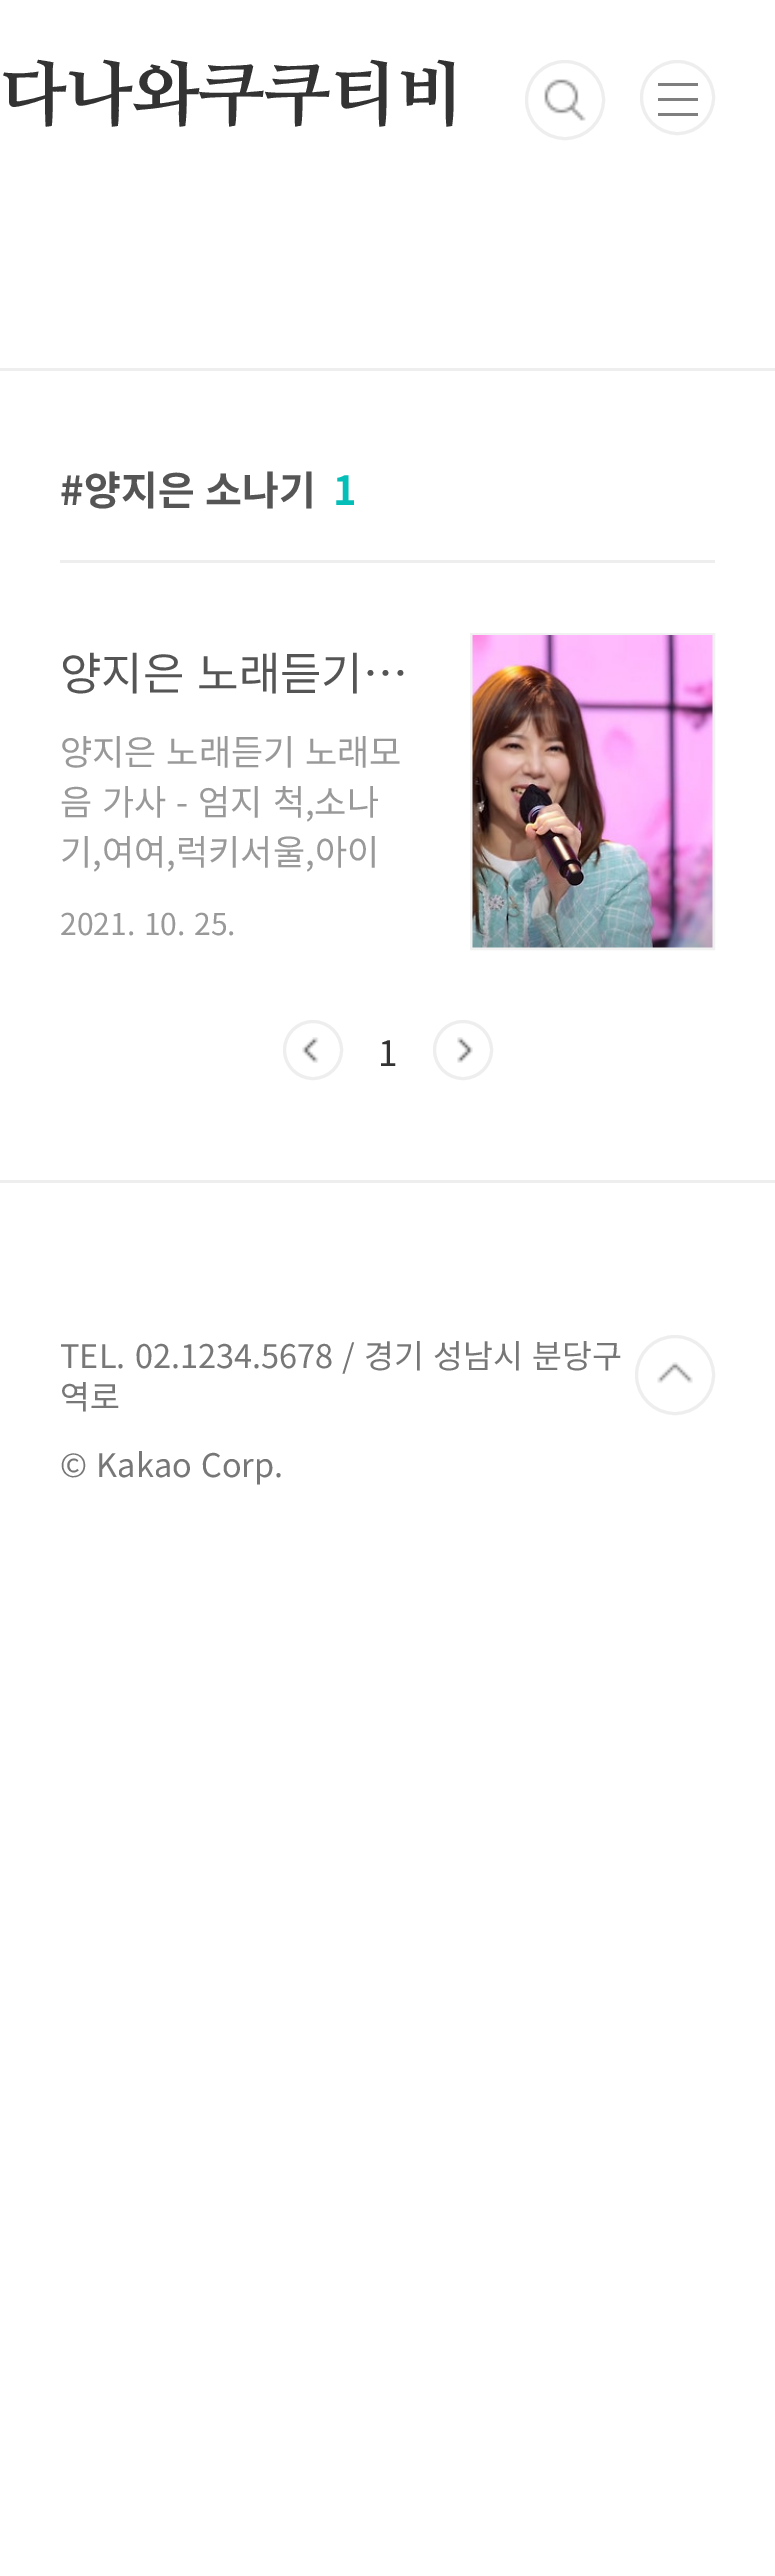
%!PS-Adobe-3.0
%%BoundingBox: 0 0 775 2576
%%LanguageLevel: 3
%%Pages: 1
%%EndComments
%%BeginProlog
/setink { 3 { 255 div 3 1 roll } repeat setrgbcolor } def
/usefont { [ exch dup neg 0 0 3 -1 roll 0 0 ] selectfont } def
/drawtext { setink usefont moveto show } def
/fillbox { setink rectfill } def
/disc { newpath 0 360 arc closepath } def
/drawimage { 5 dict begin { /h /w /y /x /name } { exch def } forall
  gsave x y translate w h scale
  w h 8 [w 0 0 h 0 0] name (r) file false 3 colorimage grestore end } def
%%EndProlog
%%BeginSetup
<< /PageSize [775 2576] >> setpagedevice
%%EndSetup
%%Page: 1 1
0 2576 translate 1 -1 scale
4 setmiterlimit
0 0 775 2576 255 255 255 fillbox
0 368 775 3 238 238 238 fillbox
/NanumMyeongjo-ExtraBold 70 usefont
51 51 51 setink
0 118 moveto -0.5 0 (다나와쿠쿠티비) ashow
(assets/img1.rgb) 544 79 42 42 drawimage
238 238 238 setink
3 setlinewidth
565 100 38.5 disc stroke
677.5 97.5 36 disc stroke
658 83 40 3 127 127 127 fillbox
658 98 40 3 127 127 127 fillbox
658 113 40 3 127 127 127 fillbox
60 560 655 3 238 238 238 fillbox
(#) 60 505 /NotoSansKR-Bold 40 85 85 85 drawtext
84 505 moveto 2 0 32 (양지은 소나기) widthshow
(1) 333 505 /NotoSansKR-Bold 40 4 190 184 drawtext
/NotoSansKR-Regular 45 usefont
85 85 85 setink
60 690 moveto 3 0 32 (양지은 노래듣기…) widthshow
241 241 241 setink
471.5 634.5 242 314 rectstroke
(assets/img2.rgb) 472 635 241 313 drawimage
/NotoSansKR-Regular 35 usefont
153 153 153 setink
60 765 moveto 2 0 32 (양지은 노래듣기 노래모) widthshow
60 815 moveto 2 0 32 (음 가사 - 엄지 척,소나) widthshow
(기,여여,럭키서울,아이) 60 865 /NotoSansKR-Regular 35 153 153 153 drawtext
/NotoSansKR-Regular 30 usefont
60 935 moveto 2 0 32 (2021. 10. 25.) widthshow
(assets/img3.rgb) 302 1037 17 26 drawimage
238 238 238 setink
313 1050 28.5 disc stroke
(1) 378 1066 /NotoSansKR-Regular 35 51 51 51 drawtext
(assets/img4.rgb) 457 1037 16 26 drawimage
238 238 238 setink
463 1050 28.5 disc stroke
0 1180 775 3 238 238 238 fillbox
/NotoSansKR-Regular 32.5 usefont
119 119 119 setink
60 1368 moveto 2 0 32 (TEL. 02.1234.5678 / 경기 성남시 분당구) widthshow
(역로) 60 1409 /NotoSansKR-Regular 32.5 119 119 119 drawtext
(assets/img5.rgb) 657 1362 36 22 drawimage
238 238 238 setink
675 1375 38.5 disc stroke
119 119 119 setink
60 1477 moveto 2 0 32 (© Kakao Corp.) widthshow
showpage
%%EOF
